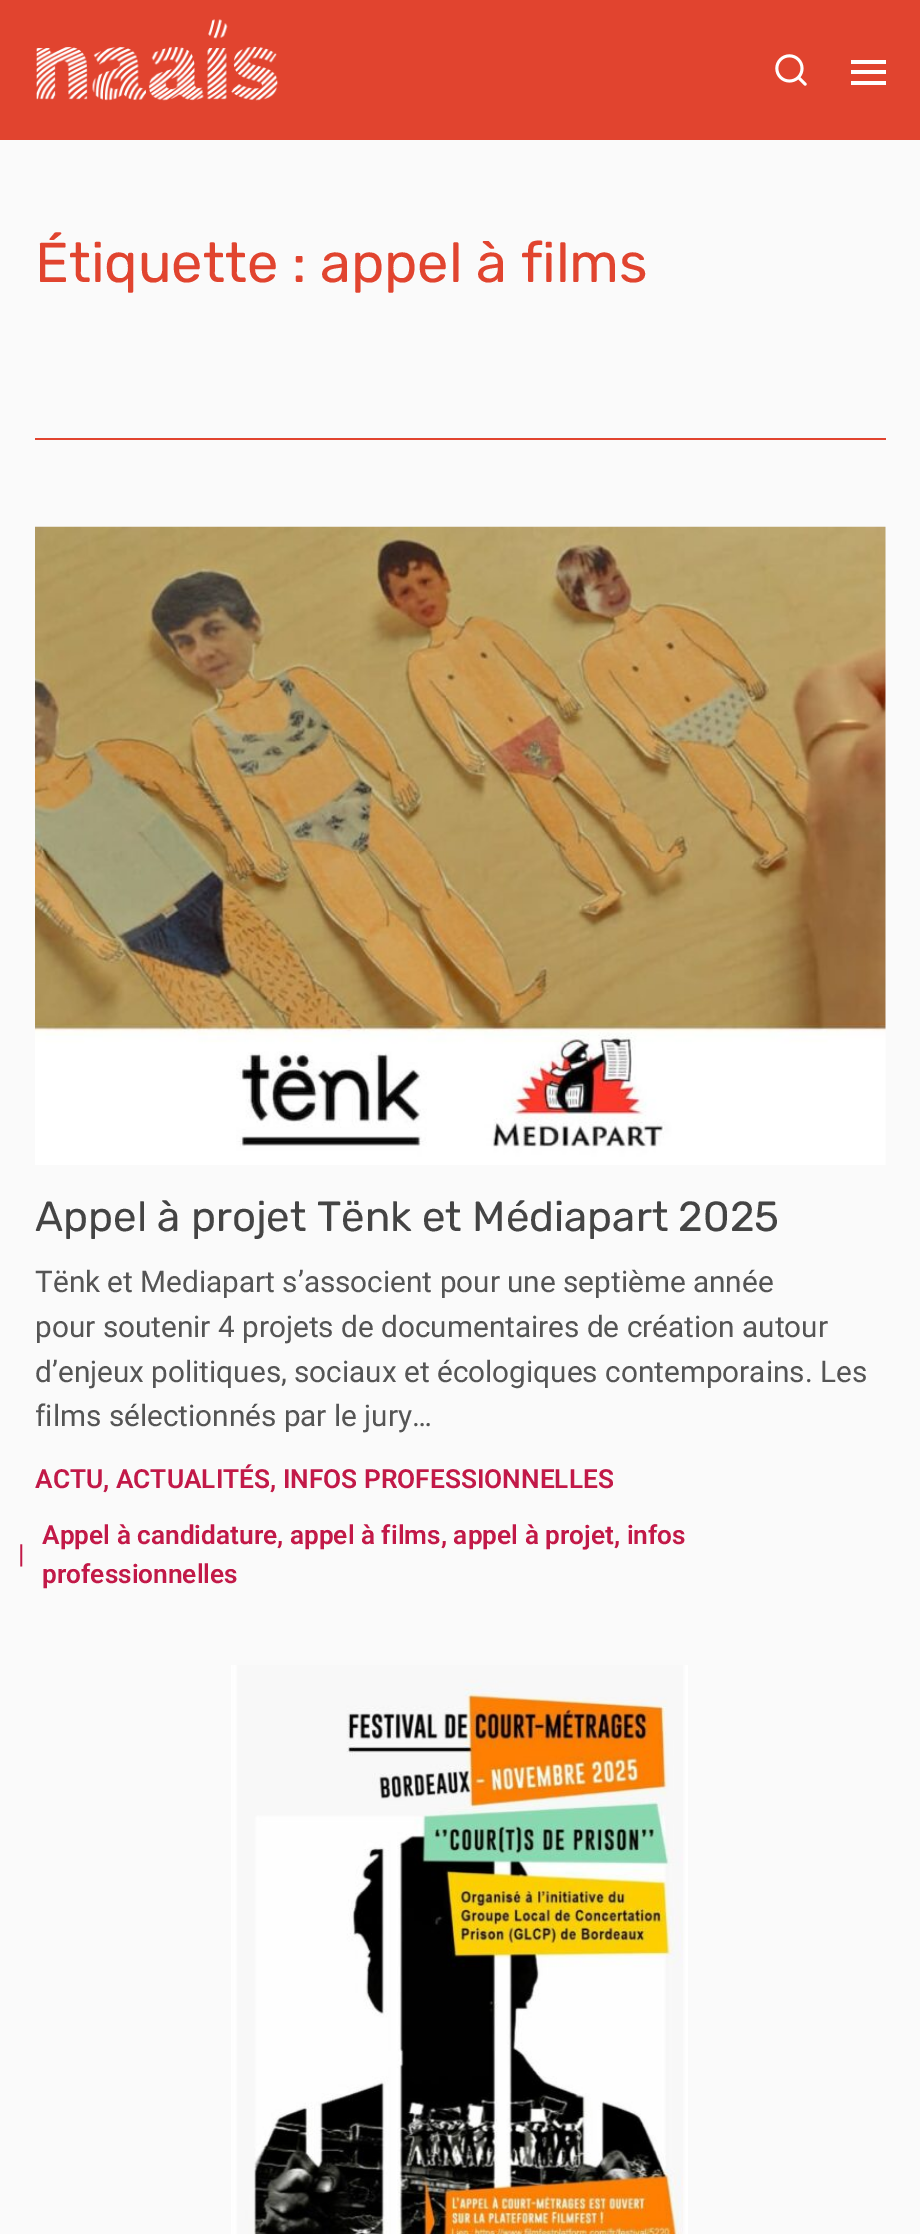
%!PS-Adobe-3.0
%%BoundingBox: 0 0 920 2234
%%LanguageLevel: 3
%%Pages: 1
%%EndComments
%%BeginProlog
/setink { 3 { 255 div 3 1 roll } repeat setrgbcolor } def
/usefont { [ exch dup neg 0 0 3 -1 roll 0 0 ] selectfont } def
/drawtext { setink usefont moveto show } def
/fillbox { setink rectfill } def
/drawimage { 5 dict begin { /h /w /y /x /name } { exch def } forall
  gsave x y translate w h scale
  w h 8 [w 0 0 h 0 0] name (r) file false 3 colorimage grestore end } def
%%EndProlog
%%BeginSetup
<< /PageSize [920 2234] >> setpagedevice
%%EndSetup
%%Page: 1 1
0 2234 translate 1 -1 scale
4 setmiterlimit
0 0 920 2234 250 250 250 fillbox
0 0 920 140 225 68 47 fillbox
(assets/img1.rgb) 36 19 243 82 drawimage
(assets/img2.rgb) 775 54 32 32 drawimage
851 60 35 4 255 255 255 fillbox
851 70 35 4 255 255 255 fillbox
851 81 35 4 255 255 255 fillbox
35 438 851 2 225 68 47 fillbox
(Étiquette : appel à films) 35 282 /Rubik-Regular 56 225 68 47 drawtext
(assets/img3.rgb) 35 526 851 639 drawimage
(Appel à projet Tënk et Médiapart 2025) 35 1231 /Rubik-Regular 42 68 68 68 drawtext
(Tënk et Mediapart s’associent pour une septième année) 35 1292 /Roboto-Regular 29.75 85 85 85 drawtext
(pour soutenir 4 projets de documentaires de création autour) 35 1337 /Roboto-Regular 29.75 85 85 85 drawtext
(d’enjeux politiques, sociaux et écologiques contemporains. Les) 35 1382 /Roboto-Regular 29.75 85 85 85 drawtext
(films sélectionnés par le jury…) 35 1426 /Roboto-Regular 29.75 85 85 85 drawtext
(ACTU, ACTUALITÉS, INFOS PROFESSIONNELLES) 35 1488 /Roboto-SemiBold 26.25 194 25 72 drawtext
(|) 18 1563 /Roboto-SemiBold 26.25 194 25 72 drawtext
(Appel à candidature, appel à films, appel à projet, infos) 42 1544 /Roboto-SemiBold 26.25 194 25 72 drawtext
(professionnelles) 42 1583 /Roboto-SemiBold 26.25 194 25 72 drawtext
(assets/img4.rgb) 231 1665 457 569 drawimage
showpage
%%EOF
